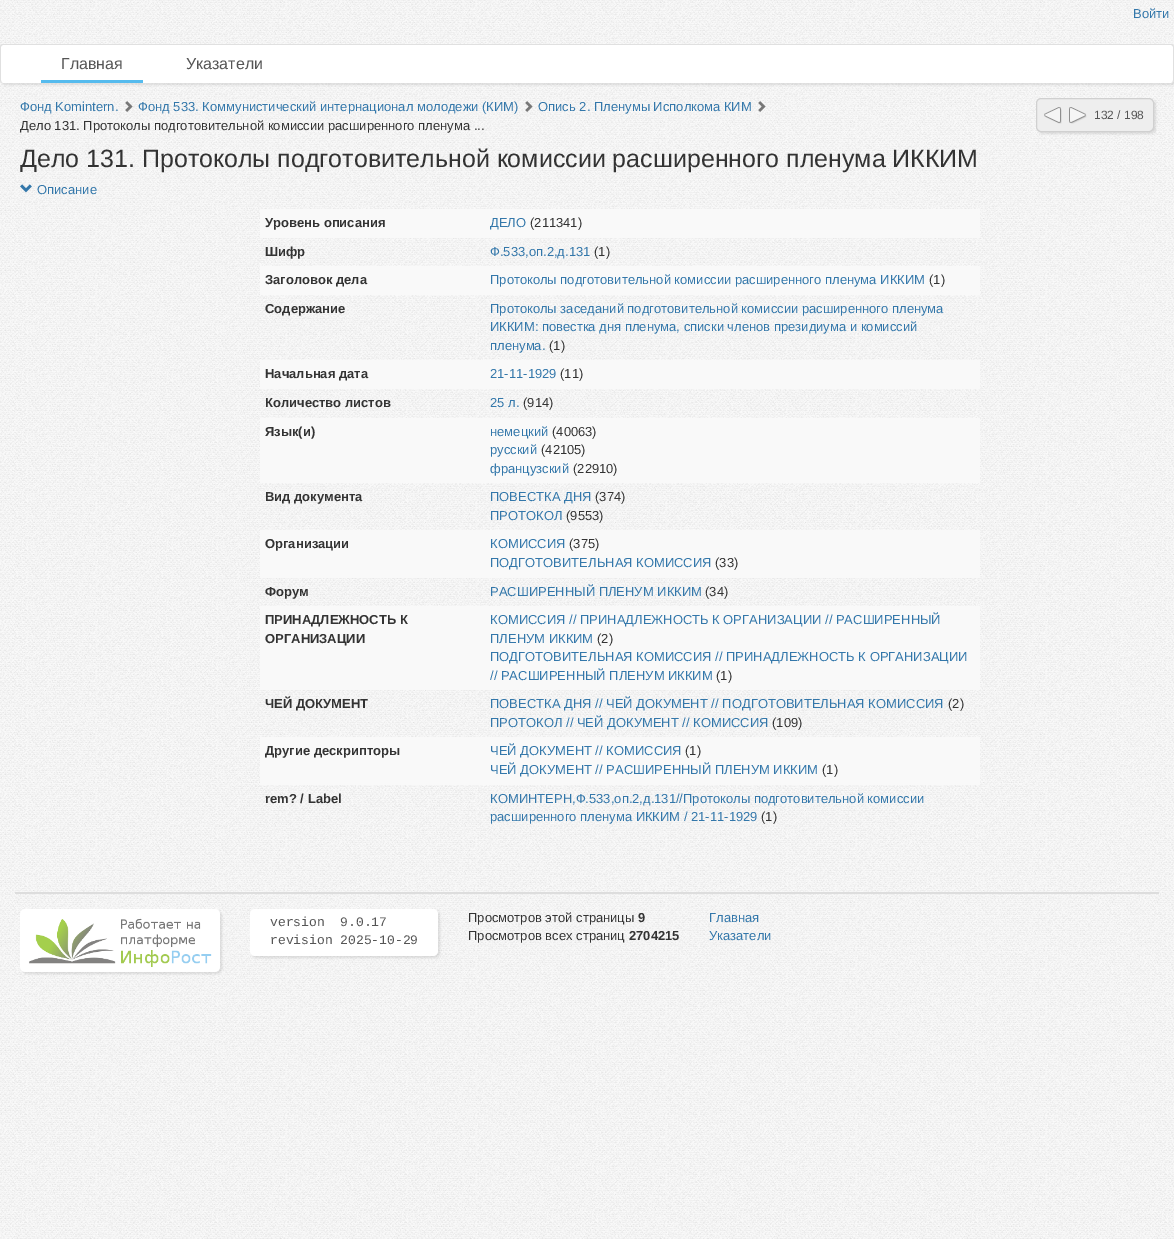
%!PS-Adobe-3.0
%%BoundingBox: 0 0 1174 1239
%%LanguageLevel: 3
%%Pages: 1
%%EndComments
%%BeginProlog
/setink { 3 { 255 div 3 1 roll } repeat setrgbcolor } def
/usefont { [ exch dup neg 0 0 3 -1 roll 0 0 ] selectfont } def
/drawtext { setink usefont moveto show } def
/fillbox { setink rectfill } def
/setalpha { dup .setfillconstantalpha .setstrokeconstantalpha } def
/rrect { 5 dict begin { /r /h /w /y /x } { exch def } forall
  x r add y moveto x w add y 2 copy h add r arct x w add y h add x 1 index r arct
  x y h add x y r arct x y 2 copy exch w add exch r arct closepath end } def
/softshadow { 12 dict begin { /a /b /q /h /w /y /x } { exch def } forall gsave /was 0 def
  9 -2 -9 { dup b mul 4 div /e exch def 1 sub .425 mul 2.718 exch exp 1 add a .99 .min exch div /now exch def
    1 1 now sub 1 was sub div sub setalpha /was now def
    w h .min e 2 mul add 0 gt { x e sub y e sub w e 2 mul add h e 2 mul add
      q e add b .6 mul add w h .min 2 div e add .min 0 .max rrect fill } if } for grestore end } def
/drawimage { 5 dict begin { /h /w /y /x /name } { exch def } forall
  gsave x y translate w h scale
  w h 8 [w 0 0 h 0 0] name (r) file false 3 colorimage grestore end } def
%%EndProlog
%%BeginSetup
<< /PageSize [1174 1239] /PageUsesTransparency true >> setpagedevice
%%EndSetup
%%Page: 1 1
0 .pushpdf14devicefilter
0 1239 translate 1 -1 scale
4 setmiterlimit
0 0 1174 1239 255 255 255 fillbox
(assets/img1.rgb) 0 0 1174 1239 drawimage
(Войти) 1133 18 /LiberationSans-Regular 13 51 119 170 drawtext
0 0 0 setink
2 46 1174 39 3 1 0.1 softshadow
255 255 255 setink
0 44 1174 39 3 rrect fill
224 224 224 setink
3 44 moveto 1171 44 lineto 1173 44 1174 45 1174 47 curveto 1174 80 lineto 1174 82 1173 83 1171 83 curveto 3 83 lineto 1 83 0 82 0 80 curveto 0 47 lineto 0 45 1 44 3 44 curveto closepath 3 45 moveto 1171 45 lineto 1172 45 1173 46 1173 47 curveto 1173 80 lineto 1173 82 1172 83 1171 83 curveto 3 83 lineto 2 83 1 82 1 80 curveto 1 47 lineto 1 46 2 45 3 45 curveto closepath eofill
41 80 102 3 85 187 238 fillbox
(Главная) 61 69 /LiberationSans-Regular 16 85 85 85 drawtext
(Указатели) 186 69 /LiberationSans-Regular 16 85 85 85 drawtext
(Фонд Komintern.) 20 111 /LiberationSans-Regular 13 51 119 170 drawtext
(assets/img2.rgb) 125 101 8 11 drawimage
(Фонд 533. Коммунистический интернационал молодежи \(КИМ\)) 138 111 /LiberationSans-Regular 13 51 119 170 drawtext
(assets/img3.rgb) 525 101 8 11 drawimage
(Опись 2. Пленумы Исполкома КИМ) 538 111 /LiberationSans-Regular 13 51 119 170 drawtext
(assets/img4.rgb) 758 101 8 11 drawimage
(Дело 131. Протоколы подготовительной комиссии расширенного пленума ...) 20 130 /LiberationSans-Regular 13 51 51 51 drawtext
0 0 0 setink
1038 100 118 34 5 1 0.1 softshadow
238 238 238 setink
1036.5 98.5 117 33 4.5 rrect gsave fill grestore
208 208 208 setink
stroke
(assets/img5.rgb) 1044 107 18 17 drawimage
(assets/img6.rgb) 1069 107 18 17 drawimage
(132 / 198) 1094 119 /LiberationSans-Regular 12 85 85 85 drawtext
(Дело 131. Протоколы подготовительной комиссии расширенного пленума ИККИМ) 20 167 /LiberationSans-Regular 25 51 51 51 drawtext
(assets/img7.rgb) 20 184 12 9 drawimage
(Описание) 37 194 /LiberationSans-Regular 13 51 119 170 drawtext
260 209 720 29 249 249 249 fillbox
(Уровень описания) 265 227 /LiberationSans-Bold 13 51 51 51 drawtext
(ДЕЛО) 490 227 /LiberationSans-Regular 13 51 119 170 drawtext
(\(211341\)) 530 227 /LiberationSans-Regular 13 51 51 51 drawtext
(Шифр) 265 256 /LiberationSans-Bold 13 51 51 51 drawtext
(Ф.533,оп.2,д.131) 490 256 /LiberationSans-Regular 13 51 119 170 drawtext
(\(1\)) 594 256 /LiberationSans-Regular 13 51 51 51 drawtext
260 266 720 29 249 249 249 fillbox
(Заголовок дела) 265 284 /LiberationSans-Bold 13 51 51 51 drawtext
(Протоколы подготовительной комиссии расширенного пленума ИККИМ) 490 284 /LiberationSans-Regular 13 51 119 170 drawtext
(\(1\)) 929 284 /LiberationSans-Regular 13 51 51 51 drawtext
(Содержание) 265 313 /LiberationSans-Bold 13 51 51 51 drawtext
(Протоколы заседаний подготовительной комиссии расширенного пленума) 490 313 /LiberationSans-Regular 13 51 119 170 drawtext
(ИККИМ: повестка дня пленума, списки членов президиума и комиссий) 490 331 /LiberationSans-Regular 13 51 119 170 drawtext
(пленума.) 490 350 /LiberationSans-Regular 13 51 119 170 drawtext
(\(1\)) 549 350 /LiberationSans-Regular 13 51 51 51 drawtext
260 360 720 29 249 249 249 fillbox
(Начальная дата) 265 378 /LiberationSans-Bold 13 51 51 51 drawtext
(21-11-1929) 490 378 /LiberationSans-Regular 13 51 119 170 drawtext
(\(11\)) 560 378 /LiberationSans-Regular 13 51 51 51 drawtext
(Количество листов) 265 407 /LiberationSans-Bold 13 51 51 51 drawtext
(25 л.) 490 407 /LiberationSans-Regular 13 51 119 170 drawtext
(\(914\)) 523 407 /LiberationSans-Regular 13 51 51 51 drawtext
260 418 720 65 249 249 249 fillbox
(Язык\(и\)) 265 436 /LiberationSans-Bold 13 51 51 51 drawtext
(немецкий) 490 436 /LiberationSans-Regular 13 51 119 170 drawtext
(\(40063\)) 552 436 /LiberationSans-Regular 13 51 51 51 drawtext
(русский) 490 454 /LiberationSans-Regular 13 51 119 170 drawtext
(\(42105\)) 541 454 /LiberationSans-Regular 13 51 51 51 drawtext
(французский) 490 473 /LiberationSans-Regular 13 51 119 170 drawtext
(\(22910\)) 573 473 /LiberationSans-Regular 13 51 51 51 drawtext
(Вид документа) 265 501 /LiberationSans-Bold 13 51 51 51 drawtext
(ПОВЕСТКА ДНЯ) 490 501 /LiberationSans-Regular 13 51 119 170 drawtext
(\(374\)) 595 501 /LiberationSans-Regular 13 51 51 51 drawtext
(ПРОТОКОЛ) 490 520 /LiberationSans-Regular 13 51 119 170 drawtext
(\(9553\)) 566 520 /LiberationSans-Regular 13 51 51 51 drawtext
260 530 720 48 249 249 249 fillbox
(Организации) 265 548 /LiberationSans-Bold 13 51 51 51 drawtext
(КОМИССИЯ) 490 548 /LiberationSans-Regular 13 51 119 170 drawtext
(\(375\)) 569 548 /LiberationSans-Regular 13 51 51 51 drawtext
(ПОДГОТОВИТЕЛЬНАЯ КОМИССИЯ) 490 567 /LiberationSans-Regular 13 51 119 170 drawtext
(\(33\)) 715 567 /LiberationSans-Regular 13 51 51 51 drawtext
(Форум) 265 596 /LiberationSans-Bold 13 51 51 51 drawtext
(РАСШИРЕННЫЙ ПЛЕНУМ ИККИМ) 490 596 /LiberationSans-Regular 13 51 119 170 drawtext
(\(34\)) 705 596 /LiberationSans-Regular 13 51 51 51 drawtext
260 606 720 84 249 249 249 fillbox
(ПРИНАДЛЕЖНОСТЬ К) 265 624 /LiberationSans-Bold 13 51 51 51 drawtext
(ОРГАНИЗАЦИИ) 265 643 /LiberationSans-Bold 13 51 51 51 drawtext
(КОМИССИЯ // ПРИНАДЛЕЖНОСТЬ К ОРГАНИЗАЦИИ // РАСШИРЕННЫЙ) 490 624 /LiberationSans-Regular 13 51 119 170 drawtext
(ПЛЕНУМ ИККИМ) 490 643 /LiberationSans-Regular 13 51 119 170 drawtext
(\(2\)) 597 643 /LiberationSans-Regular 13 51 51 51 drawtext
(ПОДГОТОВИТЕЛЬНАЯ КОМИССИЯ // ПРИНАДЛЕЖНОСТЬ К ОРГАНИЗАЦИИ) 490 661 /LiberationSans-Regular 13 51 119 170 drawtext
(// РАСШИРЕННЫЙ ПЛЕНУМ ИККИМ) 490 680 /LiberationSans-Regular 13 51 119 170 drawtext
(\(1\)) 716 680 /LiberationSans-Regular 13 51 51 51 drawtext
(ЧЕЙ ДОКУМЕНТ) 265 708 /LiberationSans-Bold 13 51 51 51 drawtext
(ПОВЕСТКА ДНЯ // ЧЕЙ ДОКУМЕНТ // ПОДГОТОВИТЕЛЬНАЯ КОМИССИЯ) 490 708 /LiberationSans-Regular 13 51 119 170 drawtext
(\(2\)) 948 708 /LiberationSans-Regular 13 51 51 51 drawtext
(ПРОТОКОЛ // ЧЕЙ ДОКУМЕНТ // КОМИССИЯ) 490 727 /LiberationSans-Regular 13 51 119 170 drawtext
(\(109\)) 772 727 /LiberationSans-Regular 13 51 51 51 drawtext
260 737 720 48 249 249 249 fillbox
(Другие дескрипторы) 265 755 /LiberationSans-Bold 13 51 51 51 drawtext
(ЧЕЙ ДОКУМЕНТ // КОМИССИЯ) 490 755 /LiberationSans-Regular 13 51 119 170 drawtext
(\(1\)) 685 755 /LiberationSans-Regular 13 51 51 51 drawtext
(ЧЕЙ ДОКУМЕНТ // РАСШИРЕННЫЙ ПЛЕНУМ ИККИМ) 490 774 /LiberationSans-Regular 13 51 119 170 drawtext
(\(1\)) 822 774 /LiberationSans-Regular 13 51 51 51 drawtext
(rem? / Label) 265 803 /LiberationSans-Bold 13 51 51 51 drawtext
(КОМИНТЕРН,Ф.533,оп.2,д.131//Протоколы подготовительной комиссии) 490 803 /LiberationSans-Regular 13 51 119 170 drawtext
(расширенного пленума ИККИМ / 21-11-1929) 490 821 /LiberationSans-Regular 13 51 119 170 drawtext
(\(1\)) 761 821 /LiberationSans-Regular 13 51 51 51 drawtext
15 892 1144 2 221 221 221 fillbox
0 0 0 setink
22 911 200 63 5 1 0.1 softshadow
(assets/img8.rgb) 20 909 200 63 drawimage
252 911 188 47 5 1 0.1 softshadow
255 255 255 setink
250 909 188 47 5 rrect fill
(version  9.0.17) 270 926 /LiberationMono-Regular 13 85 85 85 drawtext
(revision 2025-10-29) 270 944 /LiberationMono-Regular 13 85 85 85 drawtext
(Просмотров этой страницы) 468 922 /LiberationSans-Regular 13 51 51 51 drawtext
(9) 638 922 /LiberationSans-Bold 13 51 51 51 drawtext
(Просмотров всех страниц) 468 940 /LiberationSans-Regular 13 51 51 51 drawtext
(2704215) 629 940 /LiberationSans-Bold 13 51 51 51 drawtext
(Главная) 709 922 /LiberationSans-Regular 13 51 119 170 drawtext
(Указатели) 709 940 /LiberationSans-Regular 13 51 119 170 drawtext
.poppdf14devicefilter showpage
%%EOF
